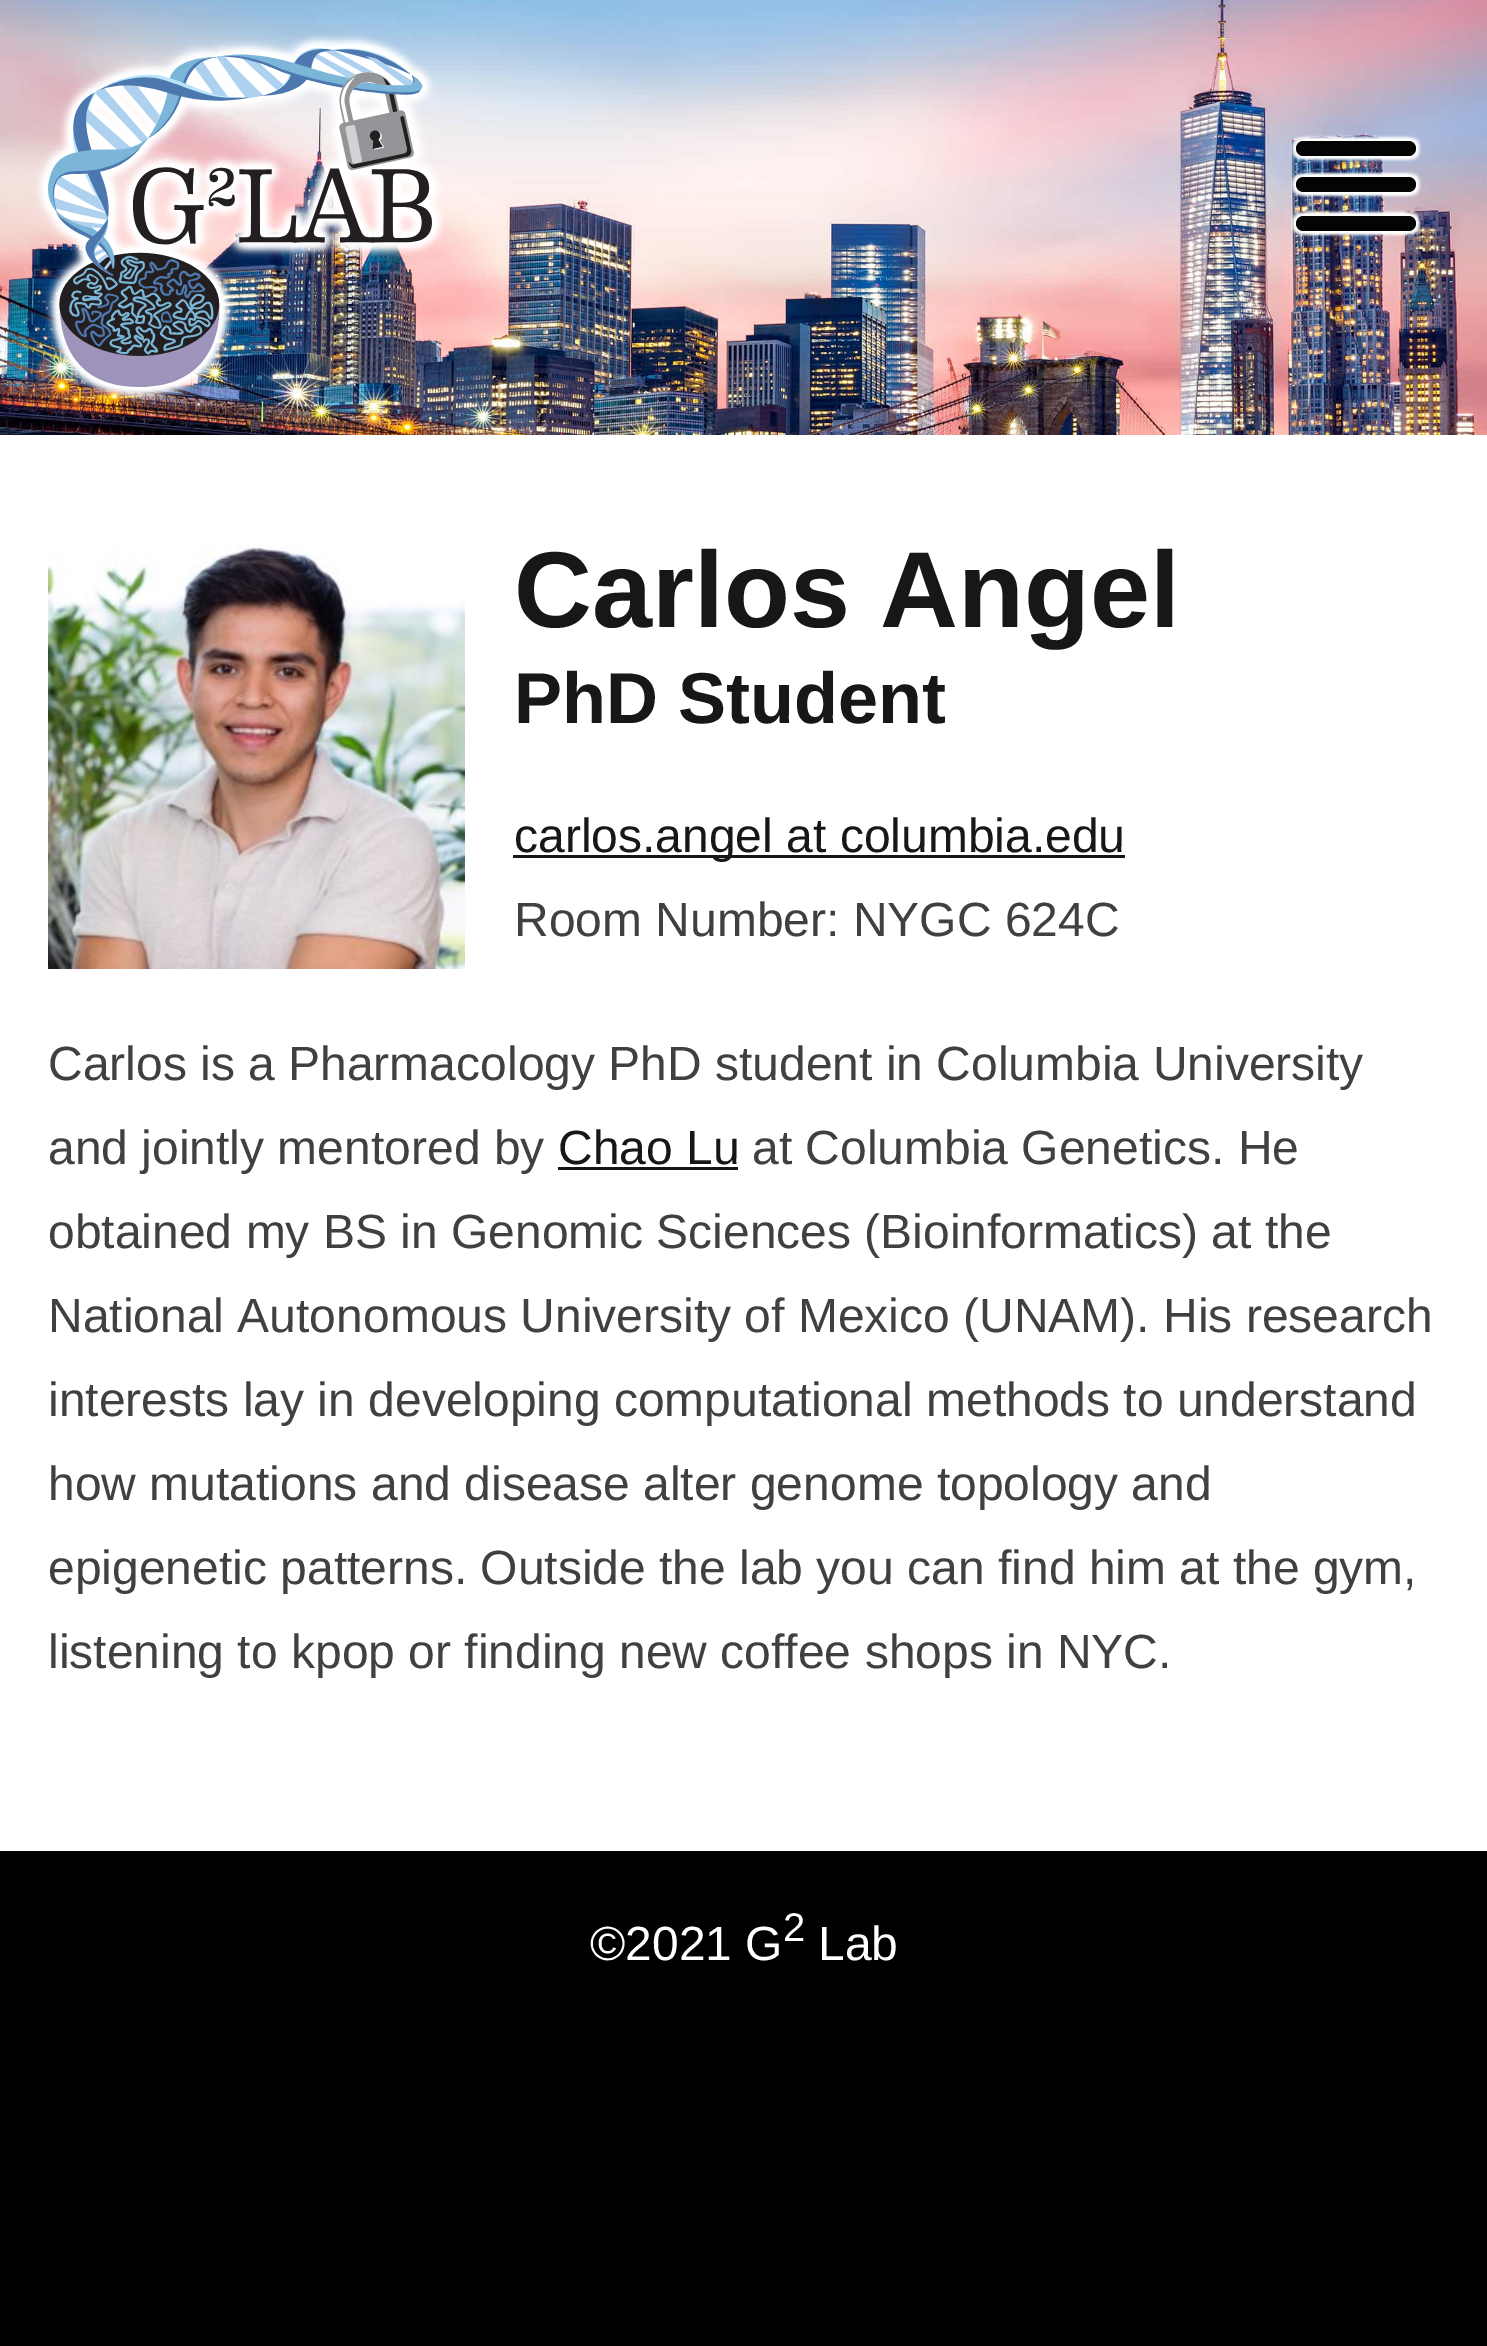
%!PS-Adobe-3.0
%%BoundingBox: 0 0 1487 2346
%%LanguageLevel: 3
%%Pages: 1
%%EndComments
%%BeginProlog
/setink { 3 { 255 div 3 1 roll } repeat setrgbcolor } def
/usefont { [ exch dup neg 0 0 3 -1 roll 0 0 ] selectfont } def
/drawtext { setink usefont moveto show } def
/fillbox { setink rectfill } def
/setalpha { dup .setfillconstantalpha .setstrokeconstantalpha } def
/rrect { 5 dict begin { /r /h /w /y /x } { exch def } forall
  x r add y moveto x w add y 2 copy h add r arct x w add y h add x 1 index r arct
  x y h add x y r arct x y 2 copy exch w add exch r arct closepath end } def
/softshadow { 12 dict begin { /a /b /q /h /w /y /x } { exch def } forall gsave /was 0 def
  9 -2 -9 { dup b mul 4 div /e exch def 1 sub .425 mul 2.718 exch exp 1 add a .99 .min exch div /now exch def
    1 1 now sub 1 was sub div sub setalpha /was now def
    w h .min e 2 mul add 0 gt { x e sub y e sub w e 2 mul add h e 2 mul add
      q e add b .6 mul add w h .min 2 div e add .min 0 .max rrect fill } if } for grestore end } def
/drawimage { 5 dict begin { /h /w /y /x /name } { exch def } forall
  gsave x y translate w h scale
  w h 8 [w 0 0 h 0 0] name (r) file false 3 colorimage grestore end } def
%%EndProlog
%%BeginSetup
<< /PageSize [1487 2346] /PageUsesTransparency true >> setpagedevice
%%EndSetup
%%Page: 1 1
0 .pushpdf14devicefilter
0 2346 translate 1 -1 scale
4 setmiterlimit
0 0 1487 2346 0 0 0 fillbox
(assets/img1.rgb) 0 0 1487 435 drawimage
(assets/img2.rgb) 36 33 409 370 drawimage
255 255 255 setink
1293 174 120 15 7.5 1.5 1 softshadow
1299 180 120 15 7.5 1.5 1 softshadow
1293 180 120 15 7.5 1.5 1 softshadow
1299 174 120 15 7.5 1.5 1 softshadow
4 4 4 setink
1296 177 120 15 7.5 rrect fill
255 255 255 setink
1293 138 120 15 7.5 1.5 1 softshadow
1299 144 120 15 7.5 1.5 1 softshadow
1293 144 120 15 7.5 1.5 1 softshadow
1299 138 120 15 7.5 1.5 1 softshadow
4 4 4 setink
1296 141 120 15 7.5 rrect fill
255 255 255 setink
1293 213 120 15 7.5 1.5 1 softshadow
1299 219 120 15 7.5 1.5 1 softshadow
1293 219 120 15 7.5 1.5 1 softshadow
1299 213 120 15 7.5 1.5 1 softshadow
4 4 4 setink
1296 216 120 15 7.5 rrect fill
0 435 1487 1416 255 255 255 fillbox
(assets/img3.rgb) 48 542 417 427 drawimage
(Carlos Angel) 514 627 /LiberationSans-Bold 108 23 23 23 drawtext
(PhD Student) 514 723 /LiberationSans-Bold 72 23 23 23 drawtext
513 855 612 3 23 23 23 fillbox
(carlos.angel at columbia.edu) 514 852 /LiberationSans-Regular 48 23 23 23 drawtext
(Room Number: NYGC 624C) 514 936 /LiberationSans-Regular 48 64 64 64 drawtext
(Carlos is a Pharmacology PhD student in Columbia University) 48 1080 /LiberationSans-Regular 48 64 64 64 drawtext
(and jointly mentored by) 48 1164 /LiberationSans-Regular 48 64 64 64 drawtext
(Chao Lu) 558 1164 /LiberationSans-Regular 48 23 23 23 drawtext
558 1167 180 3 23 23 23 fillbox
(at Columbia Genetics. He) 752 1164 /LiberationSans-Regular 48 64 64 64 drawtext
(obtained my BS in Genomic Sciences \(Bioinformatics\) at the) 48 1248 /LiberationSans-Regular 48 64 64 64 drawtext
(National Autonomous University of Mexico \(UNAM\). His research) 48 1332 /LiberationSans-Regular 48 64 64 64 drawtext
(interests lay in developing computational methods to understand) 48 1416 /LiberationSans-Regular 48 64 64 64 drawtext
(how mutations and disease alter genome topology and) 48 1500 /LiberationSans-Regular 48 64 64 64 drawtext
(epigenetic patterns. Outside the lab you can find him at the gym,) 48 1584 /LiberationSans-Regular 48 64 64 64 drawtext
(listening to kpop or finding new coffee shops in NYC.) 48 1668 /LiberationSans-Regular 48 64 64 64 drawtext
(©2021 G) 590 1960 /LiberationSans-Regular 48 255 255 255 drawtext
(2) 783 1941 /LiberationSans-Regular 40 255 255 255 drawtext
(Lab) 818 1960 /LiberationSans-Regular 48 255 255 255 drawtext
.poppdf14devicefilter showpage
%%EOF
